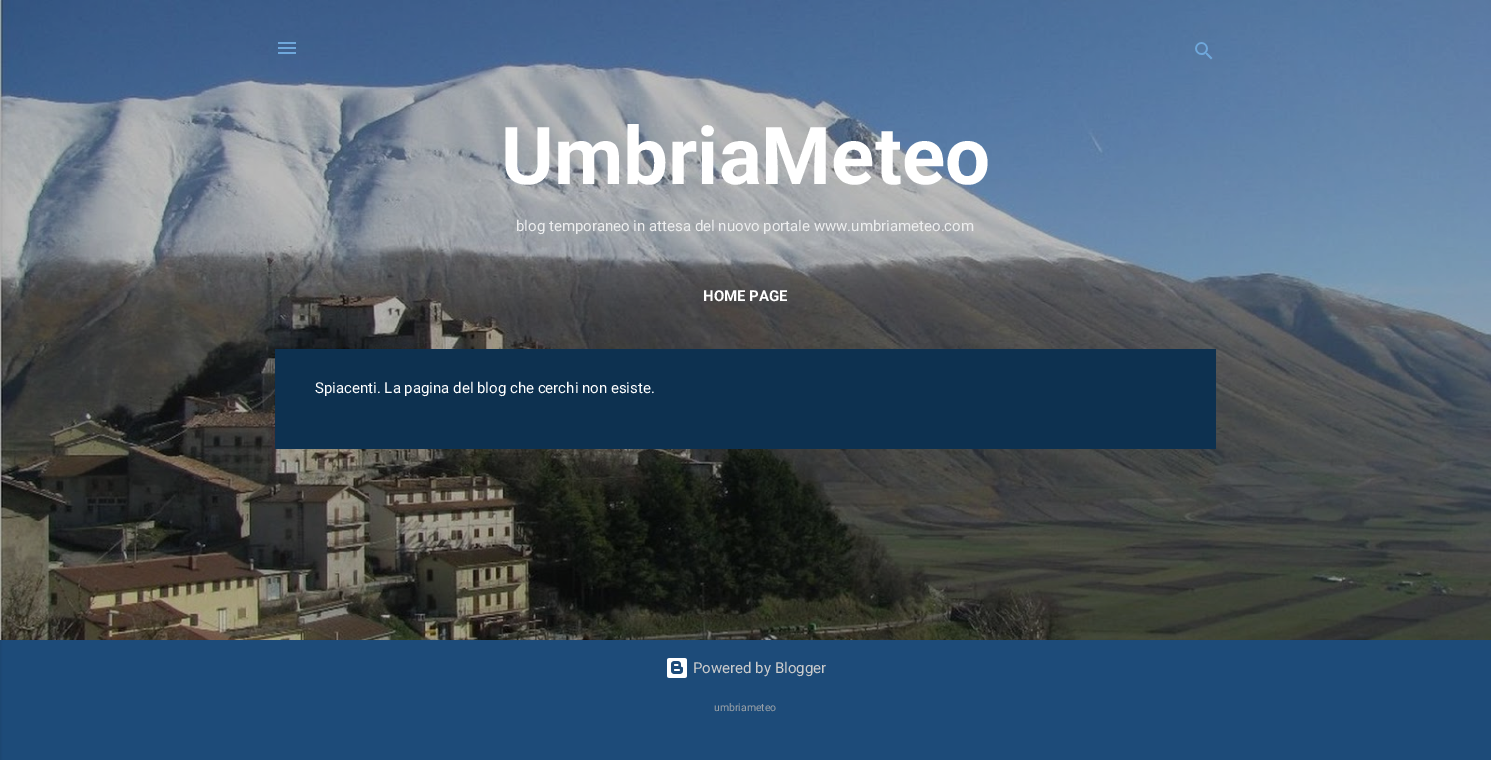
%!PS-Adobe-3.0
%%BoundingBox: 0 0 1491 760
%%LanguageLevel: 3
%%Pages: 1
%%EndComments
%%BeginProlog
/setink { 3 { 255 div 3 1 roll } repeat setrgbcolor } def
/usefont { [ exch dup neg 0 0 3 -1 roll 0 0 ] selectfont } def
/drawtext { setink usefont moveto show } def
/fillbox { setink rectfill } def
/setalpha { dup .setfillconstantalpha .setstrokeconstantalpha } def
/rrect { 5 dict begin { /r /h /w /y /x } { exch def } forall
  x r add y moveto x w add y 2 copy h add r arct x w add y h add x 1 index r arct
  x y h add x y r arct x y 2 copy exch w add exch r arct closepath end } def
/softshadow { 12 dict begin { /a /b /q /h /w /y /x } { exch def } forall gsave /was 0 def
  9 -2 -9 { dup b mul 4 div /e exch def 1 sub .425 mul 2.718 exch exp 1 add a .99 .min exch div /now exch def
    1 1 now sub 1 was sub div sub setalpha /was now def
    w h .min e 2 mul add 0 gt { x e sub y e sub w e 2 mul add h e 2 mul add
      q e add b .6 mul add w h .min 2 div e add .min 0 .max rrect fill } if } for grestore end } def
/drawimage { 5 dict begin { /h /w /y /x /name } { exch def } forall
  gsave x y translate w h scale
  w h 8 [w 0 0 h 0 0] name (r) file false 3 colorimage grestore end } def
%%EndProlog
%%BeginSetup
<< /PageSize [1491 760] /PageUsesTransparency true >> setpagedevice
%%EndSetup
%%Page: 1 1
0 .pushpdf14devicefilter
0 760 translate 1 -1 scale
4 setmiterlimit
0 0 1491 760 29 75 121 fillbox
(assets/img1.rgb) 0 0 1491 640 drawimage
0 0 0 setink
-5 1 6 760 0 1.5 0.1 softshadow
(assets/img2.rgb) 278 42 18 12 drawimage
(assets/img3.rgb) 1195 42 18 18 drawimage
(UmbriaMeteo) 501 184 /Roboto-Bold 80 255 255 255 drawtext
(blog temporaneo in attesa del nuovo portale www.umbriameteo.com) 516 231 /Roboto-Regular 15 237 238 239 drawtext
(HOME PAGE) 703 301 /Roboto-Bold 15 255 255 255 drawtext
275 349 941 100 13 49 80 fillbox
(Spiacenti. La pagina del blog che cerchi non esiste.) 315 393 /Roboto-Regular 15 255 255 255 drawtext
(assets/img4.rgb) 667 658 20 20 drawimage
(Powered by Blogger) 693 673 /Roboto-Regular 15 204 204 204 drawtext
(umbriameteo) 714 711 /Roboto-Regular 10.5 155 162 168 drawtext
.poppdf14devicefilter showpage
%%EOF
